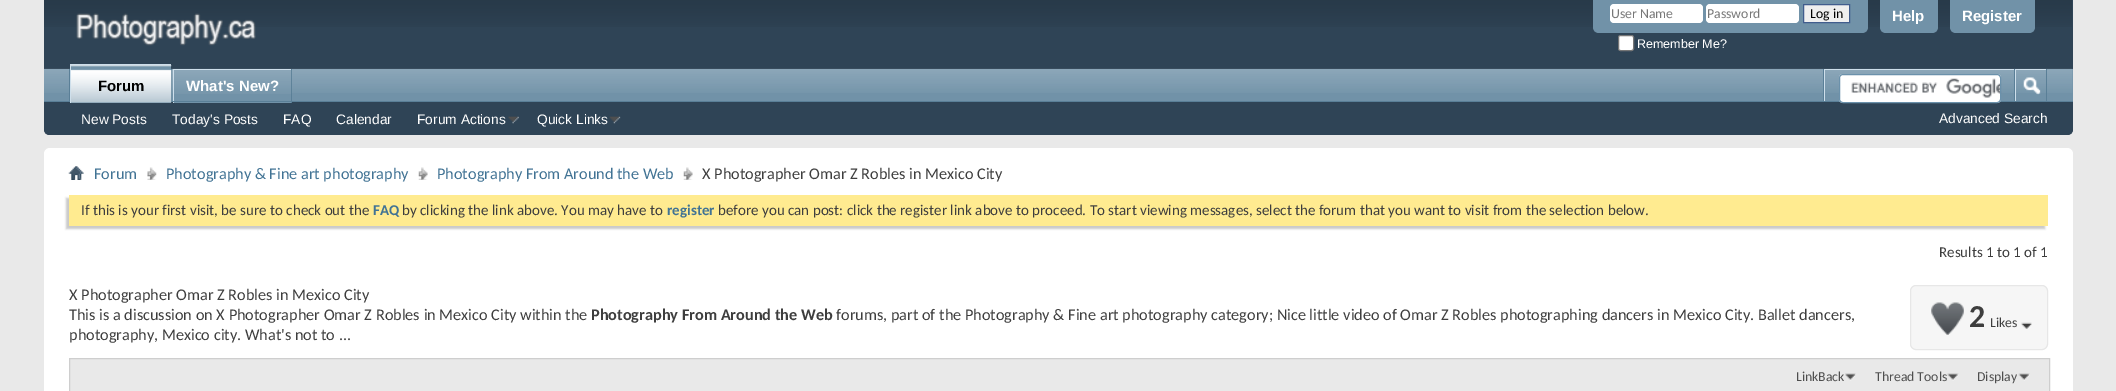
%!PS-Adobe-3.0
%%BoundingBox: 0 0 2116 391
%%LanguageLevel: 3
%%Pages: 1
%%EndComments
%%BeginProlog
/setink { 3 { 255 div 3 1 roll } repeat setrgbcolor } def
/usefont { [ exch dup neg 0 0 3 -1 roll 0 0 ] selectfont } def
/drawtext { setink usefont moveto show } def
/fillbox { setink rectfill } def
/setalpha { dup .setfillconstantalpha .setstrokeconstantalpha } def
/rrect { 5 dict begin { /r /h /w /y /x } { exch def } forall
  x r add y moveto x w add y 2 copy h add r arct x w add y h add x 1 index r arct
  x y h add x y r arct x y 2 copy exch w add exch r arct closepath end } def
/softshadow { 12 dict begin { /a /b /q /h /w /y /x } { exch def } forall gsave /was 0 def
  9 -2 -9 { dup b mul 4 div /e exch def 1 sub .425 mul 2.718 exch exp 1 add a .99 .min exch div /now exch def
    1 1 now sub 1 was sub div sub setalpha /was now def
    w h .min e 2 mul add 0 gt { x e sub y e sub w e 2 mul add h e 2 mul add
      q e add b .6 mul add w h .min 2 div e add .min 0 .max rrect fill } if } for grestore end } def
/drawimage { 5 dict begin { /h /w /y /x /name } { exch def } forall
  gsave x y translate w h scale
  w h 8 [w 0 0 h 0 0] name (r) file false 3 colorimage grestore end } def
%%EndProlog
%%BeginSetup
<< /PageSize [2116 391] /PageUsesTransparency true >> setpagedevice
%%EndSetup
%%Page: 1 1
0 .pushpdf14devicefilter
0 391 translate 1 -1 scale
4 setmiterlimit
0 0 2116 391 233 233 233 fillbox
47 68 86 setink
44 0 moveto 2073 0 lineto 2073 129 lineto 2073 132.5 2070.5 135 2067 135 curveto 50 135 lineto 46.5 135 44 132.5 44 129 curveto closepath fill
(assets/img1.rgb) 44 0 2028 27 drawimage
(assets/img2.rgb) 76 13 180 33 drawimage
113 146 168 setink
1593 0 moveto 1868 0 lineto 1868 27 lineto 1868 30.5 1865.5 33 1862 33 curveto 1599 33 lineto 1595.5 33 1593 30.5 1593 27 curveto closepath fill
255 255 255 setink
1610 4 93 19 4 rrect fill
(User Name) 1611 18 /Carlito-Regular 13.75 119 119 119 drawtext
255 255 255 setink
1706 4 93 19 4 rrect fill
(Password) 1707 18 /Carlito-Regular 13.75 119 119 119 drawtext
239 239 239 setink
1803.5 4.5 moveto 1849.5 4.5 lineto 1849.5 22.5 lineto 1803.5 22.5 lineto closepath gsave fill grestore
65 93 141 setink
stroke
(Log in) 1810 18 /Carlito-Regular 13.75 0 0 0 drawtext
255 255 255 setink
1618.5 35.5 15 15 2 rrect gsave fill grestore
118 118 118 setink
stroke
(Remember Me?) 1637 48 /LiberationSans-Regular 12.5 255 255 255 drawtext
113 146 168 setink
1880 0 moveto 1938 0 lineto 1938 27 lineto 1938 30.5 1935.5 33 1932 33 curveto 1886 33 lineto 1882.5 33 1880 30.5 1880 27 curveto closepath fill
(Help) 1892 21 /LiberationSans-Bold 15 255 255 255 drawtext
113 146 168 setink
1950 0 moveto 2035 0 lineto 2035 27 lineto 2035 30.5 2032.5 33 2029 33 curveto 1956 33 lineto 1952.5 33 1950 30.5 1950 27 curveto closepath fill
(Register) 1962 21 /LiberationSans-Bold 15 255 255 255 drawtext
47 68 86 setink
44 69 moveto 2073 69 lineto 2073 129 lineto 2073 132.5 2070.5 135 2067 135 curveto 50 135 lineto 46.5 135 44 132.5 44 129 curveto closepath fill
44 69 2029 32 113 146 168 fillbox
(assets/img3.rgb) 44 68 2029 25 drawimage
171 69 1 32 90 127 151 fillbox
69 69 1 32 90 127 151 fillbox
291 69 1 34 90 127 151 fillbox
174 70 117 33 113 146 168 fillbox
(assets/img7.rgb) 172 70 120 24 drawimage
173 69 118 1 206 223 235 fillbox
173 69 1 34 206 223 235 fillbox
44 101 2029 1 90 127 151 fillbox
71 65 100 38 113 146 168 fillbox
(assets/img4.rgb) 71 65 101 38 drawimage
70 64 101 1 206 223 235 fillbox
70 64 1 39 206 223 235 fillbox
(Forum) 98 91 /LiberationSans-Bold 15 0 0 0 drawtext
(New Posts) 81 124 /LiberationSans-Regular 13.75 255 255 255 drawtext
(Today's Posts) 172 124 /LiberationSans-Regular 13.75 255 255 255 drawtext
(FAQ) 283 124 /LiberationSans-Regular 13.75 255 255 255 drawtext
(Calendar) 336 124 /LiberationSans-Regular 13.75 255 255 255 drawtext
(Forum Actions) 417 124 /LiberationSans-Regular 13.75 255 255 255 drawtext
(assets/img5.rgb) 508 116 11 8 drawimage
(Quick Links) 537 124 /LiberationSans-Regular 13.75 255 255 255 drawtext
(assets/img6.rgb) 609 116 12 8 drawimage
(What's New?) 186 91 /LiberationSans-Bold 15 255 255 255 drawtext
1823 69 1 32 90 127 151 fillbox
1824 69 190 1 206 223 235 fillbox
1824 69 1 32 206 223 235 fillbox
255 255 255 setink
1839 74 162 29 4 rrect fill
(assets/img8.rgb) 1851 78 151 20 drawimage
107 145 171 setink
1839.5 74.5 161 28 3.5 rrect stroke
2046 69 1 32 90 127 151 fillbox
2014 69 1 32 90 127 151 fillbox
2015 69 31 1 206 223 235 fillbox
2015 69 1 32 206 223 235 fillbox
(assets/img9.rgb) 2023 77 18 18 drawimage
(Advanced Search) 1939 123 /LiberationSans-Regular 13.75 255 255 255 drawtext
44 148 2029 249 6 rrect fill
(assets/img10.rgb) 68 166 16 14 drawimage
(assets/img11.rgb) 147 167 10 13 drawimage
(Forum) 94 179 /Carlito-Regular 16.25 65 115 148 drawtext
(assets/img12.rgb) 418 167 10 13 drawimage
(Photography & Fine art photography) 166 179 /Carlito-Regular 16.25 65 115 148 drawtext
(assets/img13.rgb) 683 167 10 13 drawimage
(Photography From Around the Web) 437 179 /Carlito-Regular 16.25 65 115 148 drawtext
(X Photographer Omar Z Robles in Mexico City) 702 179 /Carlito-Regular 16.25 62 62 62 drawtext
200 200 200 setink
66 198 1979 31 0 1 1 softshadow
69 195 1979 31 255 235 144 fillbox
(If this is your first visit, be sure to check out the) 81 215 /Carlito-Regular 15 62 62 62 drawtext
(FAQ) 373 215 /Carlito-Bold 15 65 115 148 drawtext
(by clicking the link above. You may have to) 402 215 /Carlito-Regular 15 62 62 62 drawtext
(register) 667 215 /Carlito-Bold 15 65 115 148 drawtext
(before you can post: click the register link above to proceed. To start viewing messages, select the forum that you want to visit from the selection below.) 718 215 /Carlito-Regular 15 62 62 62 drawtext
(Results 1 to 1 of 1) 1939 257 /Carlito-Regular 15 62 62 62 drawtext
(X Photographer Omar Z Robles in Mexico City) 69 300 /Carlito-Regular 16.25 62 62 62 drawtext
(This is a discussion on X Photographer Omar Z Robles in Mexico City within the) 69 320 /Carlito-Regular 16.25 62 62 62 drawtext
(Photography From Around the Web) 591 320 /Carlito-Bold 16.25 62 62 62 drawtext
(forums, part of the Photography & Fine art photography category; Nice little video of Omar Z Robles photographing dancers in Mexico City. Ballet dancers,) 836 320 /Carlito-Regular 16.25 62 62 62 drawtext
(photography, Mexico city. What's not to ...) 69 340 /Carlito-Regular 16.25 62 62 62 drawtext
246 246 246 setink
1910.5 285.5 137 64 5.5 rrect gsave fill grestore
231 231 231 setink
stroke
(assets/img14.rgb) 1931 302 33 33 drawimage
(2) 1969 327 /Carlito-Bold 32 62 62 62 drawtext
(Likes) 1990 327 /Carlito-Regular 13.75 62 62 62 drawtext
(assets/img15.rgb) 2021 322 11 7 drawimage
233 233 233 setink
69.5 358.5 moveto 2049.5 358.5 lineto 2049.5 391.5 lineto 69.5 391.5 lineto closepath gsave fill grestore
206 206 206 setink
stroke
(assets/img16.rgb) 1845 373 11 8 drawimage
(LinkBack) 1796 381 /Carlito-Regular 13.75 78 78 78 drawtext
(assets/img17.rgb) 1947 373 12 8 drawimage
(Thread Tools) 1875 381 /Carlito-Regular 13.75 78 78 78 drawtext
(assets/img18.rgb) 2018 373 12 8 drawimage
(Display) 1977 381 /Carlito-Regular 13.75 78 78 78 drawtext
.poppdf14devicefilter showpage
%%EOF
